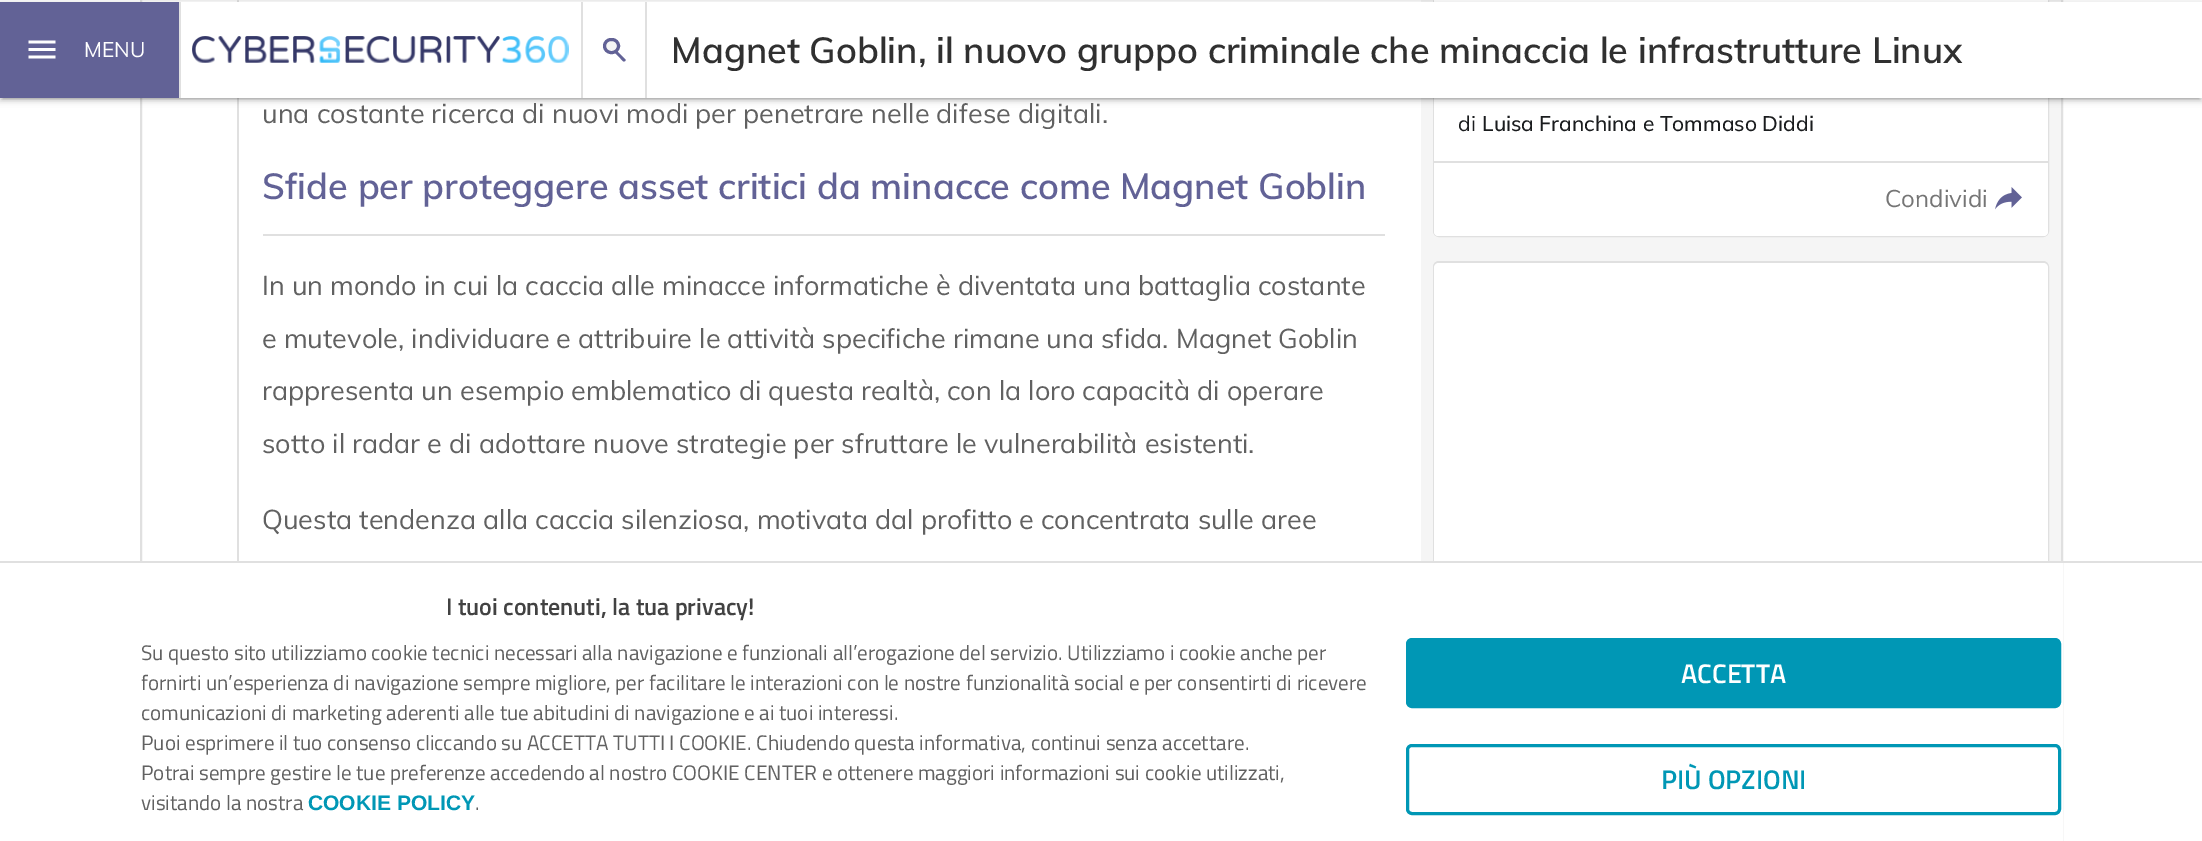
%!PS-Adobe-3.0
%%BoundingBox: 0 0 2202 841
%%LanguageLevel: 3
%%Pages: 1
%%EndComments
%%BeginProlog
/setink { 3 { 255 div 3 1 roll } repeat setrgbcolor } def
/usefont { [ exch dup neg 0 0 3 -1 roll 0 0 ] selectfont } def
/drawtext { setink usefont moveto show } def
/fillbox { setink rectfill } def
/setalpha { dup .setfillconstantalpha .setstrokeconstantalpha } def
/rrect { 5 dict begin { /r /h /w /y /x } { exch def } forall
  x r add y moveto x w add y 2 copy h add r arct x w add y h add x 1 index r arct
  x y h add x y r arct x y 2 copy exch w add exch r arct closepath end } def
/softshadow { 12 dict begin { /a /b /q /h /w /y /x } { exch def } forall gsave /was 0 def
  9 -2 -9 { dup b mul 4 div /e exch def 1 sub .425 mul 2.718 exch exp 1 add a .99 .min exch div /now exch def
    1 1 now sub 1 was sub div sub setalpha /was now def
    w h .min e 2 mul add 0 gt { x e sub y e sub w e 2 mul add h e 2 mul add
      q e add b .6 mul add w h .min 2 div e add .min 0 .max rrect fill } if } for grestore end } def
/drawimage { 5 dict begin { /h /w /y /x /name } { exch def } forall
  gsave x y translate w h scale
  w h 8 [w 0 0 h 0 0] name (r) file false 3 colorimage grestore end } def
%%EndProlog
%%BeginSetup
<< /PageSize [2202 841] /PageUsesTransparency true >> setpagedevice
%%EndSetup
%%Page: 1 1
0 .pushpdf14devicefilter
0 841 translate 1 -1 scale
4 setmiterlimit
0 0 2202 841 255 255 255 fillbox
237 0 2 561 224 224 224 fillbox
263 234 1122 2 224 224 224 fillbox
1421 0 640 561 245 245 245 fillbox
224 224 224 setink
2 setlinewidth
141 -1 1921 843 rectstroke
1434 -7 614 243 5 rrect stroke
255 255 255 setink
1434 -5 moveto 2048 -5 lineto 2048 231 lineto 2048 234 2046 236 2043 236 curveto 1439 236 lineto 1436 236 1434 234 1434 231 curveto closepath fill
0 0 0 setink
3 9 2196 90 0 1 0.2 softshadow
0 3 2202 96 0 4 0.12 softshadow
0 5 2202 96 0 3 0.14 softshadow
0 2 179 96 98 98 150 fillbox
179 2 2 96 224 224 224 fillbox
(assets/img1.rgb) 28 40 28 19 drawimage
(MENU) 84 57 /Muli-Regular 21 255 255 255 drawtext
181 2 400 96 255 255 255 fillbox
(assets/img2.rgb) 192 36 377 27 drawimage
583 2 62 96 255 255 255 fillbox
645 2 2 96 224 224 224 fillbox
581 2 2 96 224 224 224 fillbox
98 98 150 setink
610 44 moveto 625.5 59.5 lineto 626 60.5 625 61.5 623.5 61.5 curveto 622.5 61 620.5 58.5 620.5 58.5 curveto 608 46 lineto 606.5 45 609 42.5 610 44 curveto closepath fill
245 245 245 setink
604.5 39.5 14 13 6.5 rrect gsave fill grestore
98 98 150 setink
3 setlinewidth
stroke
647 2 1555 96 255 255 255 fillbox
(Magnet Goblin, il nuovo gruppo criminale che minaccia le infrastrutture Linux) 671 63 /Muli-SemiBold 36 48 48 48 drawtext
(una costante ricerca di nuovi modi per penetrare nelle difese digitali.) 262 123 /Muli-Regular 27 97 97 97 drawtext
(Sfide per proteggere asset critici da minacce come Magnet Goblin) 262 199 /Muli-SemiBold 36 98 98 150 drawtext
(In un mondo in cui la caccia alle minacce informatiche è diventata una battaglia costante) 262 295 /Muli-Regular 27 97 97 97 drawtext
(e mutevole, individuare e attribuire le attività specifiche rimane una sfida. Magnet Goblin) 262 348 /Muli-Regular 27 97 97 97 drawtext
(rappresenta un esempio emblematico di questa realtà, con la loro capacità di operare) 262 400 /Muli-Regular 27 97 97 97 drawtext
(sotto il radar e di adottare nuove strategie per sfruttare le vulnerabilità esistenti.) 262 453 /Muli-Regular 27 97 97 97 drawtext
(Questa tendenza alla caccia silenziosa, motivata dal profitto e concentrata sulle aree) 262 529 /Muli-Regular 27 97 97 97 drawtext
(di) 1458 131 /Muli-Regular 21 26 28 30 drawtext
(Luisa Franchina e Tommaso Diddi) 1482 131 /Muli-Medium 21 26 28 30 drawtext
255 255 255 setink
1434 161 moveto 2048 161 lineto 2048 231 lineto 2048 234 2046 236 2043 236 curveto 1439 236 lineto 1436 236 1434 234 1434 231 curveto closepath fill
1434 161 614 2 224 224 224 fillbox
(Condividi) 1885 207 /Muli-Regular 24 117 117 117 drawtext
(assets/img3.rgb) 1995 187 27 23 drawimage
224 224 224 setink
2 setlinewidth
1434 262 614 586 5 rrect stroke
255 255 255 setink
1439 263 moveto 2043 263 lineto 2046 263 2048 265 2048 268 curveto 2048 608 lineto 1434 608 lineto 1434 268 lineto 1434 265 1436 263 1439 263 curveto closepath fill
140 563 1923 278 255 255 255 fillbox
0 561 2202 2 224 224 224 fillbox
(I tuoi contenuti, la tua privacy!) 446 615 /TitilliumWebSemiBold-SemiBold 24 66 66 66 drawtext
(Su questo sito utilizziamo cookie tecnici necessari alla navigazione e funzionali all’erogazione del servizio. Utilizziamo i cookie anche per) 141 660 /TitilliumWeb-Regular 21 97 97 97 drawtext
(fornirti un’esperienza di navigazione sempre migliore, per facilitare le interazioni con le nostre funzionalità social e per consentirti di ricevere) 141 690 /TitilliumWeb-Regular 21 97 97 97 drawtext
(comunicazioni di marketing aderenti alle tue abitudini di navigazione e ai tuoi interessi.) 141 720 /TitilliumWeb-Regular 21 97 97 97 drawtext
(Puoi esprimere il tuo consenso cliccando su ACCETTA TUTTI I COOKIE. Chiudendo questa informativa, continui senza accettare.) 141 750 /TitilliumWeb-Regular 21 97 97 97 drawtext
(Potrai sempre gestire le tue preferenze accedendo al nostro COOKIE CENTER e ottenere maggiori informazioni sui cookie utilizzati,) 141 780 /TitilliumWeb-Regular 21 97 97 97 drawtext
(visitando la nostra) 141 810 /TitilliumWeb-Regular 21 97 97 97 drawtext
(COOKIE POLICY) 308 810 /LiberationSans-Bold 21 0 151 181 drawtext
(.) 475 810 /TitilliumWeb-Regular 21 97 97 97 drawtext
0 151 181 setink
1407.5 639.5 652 67 4.5 rrect gsave fill grestore
3 setlinewidth
stroke
(ACCETTA) 1681 683 /TitilliumWebSemiBold-SemiBold 27 255 255 255 drawtext
0 151 181 setink
1407.5 745.5 652 68 4.5 rrect stroke
(PIÙ OPZIONI) 1661 789 /TitilliumWebSemiBold-SemiBold 27 0 151 181 drawtext
.poppdf14devicefilter showpage
%%EOF
